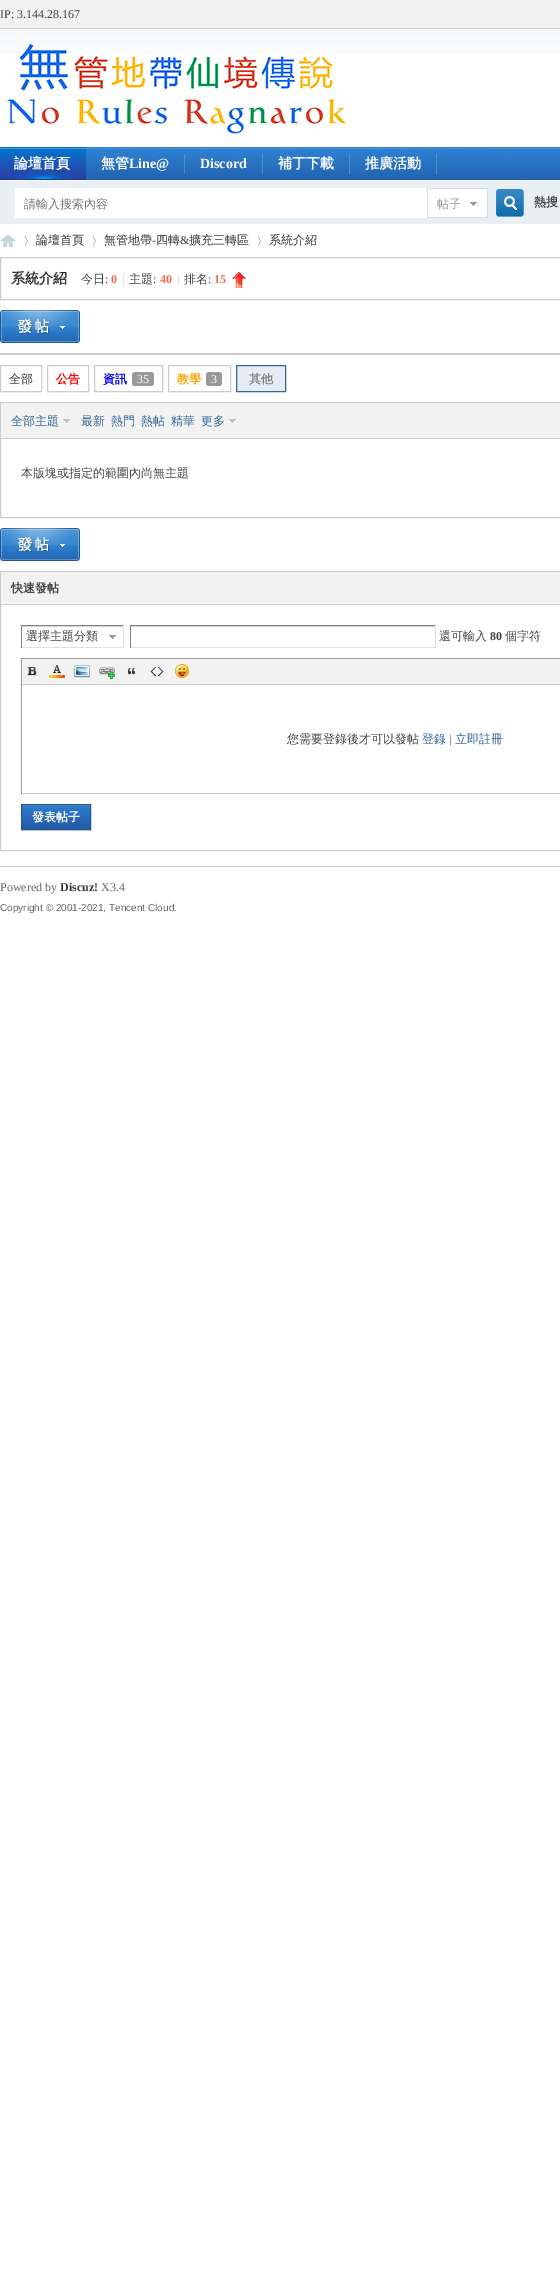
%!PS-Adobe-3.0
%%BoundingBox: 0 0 560 2280
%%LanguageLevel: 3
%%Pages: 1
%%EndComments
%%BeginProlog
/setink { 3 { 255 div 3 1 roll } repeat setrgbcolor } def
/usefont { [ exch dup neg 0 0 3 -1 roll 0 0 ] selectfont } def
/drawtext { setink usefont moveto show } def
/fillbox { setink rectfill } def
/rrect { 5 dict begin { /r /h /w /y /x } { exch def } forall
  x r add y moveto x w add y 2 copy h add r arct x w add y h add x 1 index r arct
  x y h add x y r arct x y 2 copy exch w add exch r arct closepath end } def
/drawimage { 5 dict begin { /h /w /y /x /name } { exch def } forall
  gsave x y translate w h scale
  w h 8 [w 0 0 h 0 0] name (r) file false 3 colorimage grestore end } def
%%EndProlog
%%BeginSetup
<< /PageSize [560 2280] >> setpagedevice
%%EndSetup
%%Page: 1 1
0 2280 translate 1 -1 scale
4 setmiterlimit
0 0 560 2280 255 255 255 fillbox
(assets/img1.rgb) 0 29 560 25 drawimage
0 0 560 28 242 242 242 fillbox
0 28 560 1 205 205 205 fillbox
(IP: 3.144.28.167) 0 18 /LiberationSerif-Regular 12 68 68 68 drawtext
(assets/img2.rgb) 6 42 340 92 drawimage
(assets/img3.rgb) 86 147 474 33 drawimage
(assets/img4.rgb) 0 147 86 33 drawimage
(論壇首頁) 14 168 /WenQuanYiZenHei-Bold 14 255 255 255 drawtext
(assets/img5.rgb) 184 154 1 20 drawimage
(無管) 101 168 /WenQuanYiZenHei-Bold 14 255 255 255 drawtext
(Line@) 129 168 /LiberationSerif-Bold 14 255 255 255 drawtext
(assets/img6.rgb) 262 154 1 20 drawimage
(Discord) 200 168 /LiberationSerif-Bold 14 255 255 255 drawtext
(assets/img6.rgb) 349 154 1 20 drawimage
(補丁下載) 278 168 /WenQuanYiZenHei-Bold 14 255 255 255 drawtext
(assets/img6.rgb) 436 154 1 20 drawimage
(推廣活動) 365 168 /WenQuanYiZenHei-Bold 14 255 255 255 drawtext
0 181 560 43 232 239 245 fillbox
15 188 412 30 255 255 255 fillbox
(assets/img7.rgb) 496 189 28 28 drawimage
(熱搜) 534 206 /WenQuanYiZenHei-Bold 12 68 68 68 drawtext
(請輸入搜索內容) 24 208 /WenQuanYiZenHei-Medium 12 117 117 117 drawtext
(assets/img8.rgb) 427 188 61 30 drawimage
(帖子) 437 208 /WenQuanYiZenHei-Medium 12 153 153 153 drawtext
(assets/img9.rgb) 0 235 16 12 drawimage
(assets/img10.rgb) 25 236 3 10 drawimage
(論壇首頁) 36 244 /WenQuanYiZenHei-Medium 12 51 51 51 drawtext
(assets/img10.rgb) 93 236 3 10 drawimage
(無管地帶) 104 244 /WenQuanYiZenHei-Medium 12 51 51 51 drawtext
(-) 152 244 /LiberationSerif-Regular 12 51 51 51 drawtext
(四轉) 156 244 /WenQuanYiZenHei-Medium 12 51 51 51 drawtext
(&) 180 244 /LiberationSerif-Regular 12 51 51 51 drawtext
(擴充三轉區) 189 244 /WenQuanYiZenHei-Medium 12 51 51 51 drawtext
(assets/img10.rgb) 258 236 3 10 drawimage
(系統介紹) 269 244 /WenQuanYiZenHei-Medium 12 51 51 51 drawtext
205 205 205 setink
0.5 257.5 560 42 rectstroke
(系統介紹) 11 283 /WenQuanYiZenHei-Bold 14 51 51 51 drawtext
(今日) 81 283 /WenQuanYiZenHei-Medium 12 68 68 68 drawtext
(:) 105 283 /LiberationSerif-Regular 12 68 68 68 drawtext
(0) 111 283 /LiberationSerif-Bold 12 242 108 79 drawtext
(|) 122 283 /LiberationSerif-Regular 12 204 204 204 drawtext
(主題) 129 283 /WenQuanYiZenHei-Medium 12 68 68 68 drawtext
(:) 153 283 /LiberationSerif-Regular 12 68 68 68 drawtext
(40) 160 283 /LiberationSerif-Bold 12 242 108 79 drawtext
(|) 177 283 /LiberationSerif-Regular 12 204 204 204 drawtext
(排名) 184 283 /WenQuanYiZenHei-Medium 12 68 68 68 drawtext
(:) 208 283 /LiberationSerif-Regular 12 68 68 68 drawtext
(15) 214 283 /LiberationSerif-Bold 12 242 108 79 drawtext
(assets/img11.rgb) 232 272 14 16 drawimage
(assets/img12.rgb) 0 310 80 33 drawimage
0 353 560 2 205 205 205 fillbox
0.5 365.5 41 26 rectstroke
(全部) 9 383 /WenQuanYiZenHei-Medium 12 51 51 51 drawtext
205 205 205 setink
47.5 365.5 41 26 rectstroke
(公告) 56 383 /WenQuanYiZenHei-Bold 12 255 0 0 drawtext
205 205 205 setink
94.5 365.5 68 26 rectstroke
(資訊) 103 383 /WenQuanYiZenHei-Bold 12 0 0 255 drawtext
153 153 153 setink
132 372 22 14 3 rrect fill
(35) 137 383 /LiberationSerif-Regular 12 255 255 255 drawtext
205 205 205 setink
168.5 365.5 62 26 rectstroke
(教學) 177 383 /WenQuanYiZenHei-Bold 12 255 165 0 drawtext
153 153 153 setink
206 372 16 14 3 rrect fill
(3) 211 383 /LiberationSerif-Regular 12 255 255 255 drawtext
229 237 242 setink
236.5 365.5 moveto 285.5 365.5 lineto 285.5 391.5 lineto 236.5 391.5 lineto closepath gsave fill grestore
51 102 153 setink
stroke
(其他) 249 383 /WenQuanYiZenHei-Bold 12 128 128 128 drawtext
205 205 205 setink
0.5 402.5 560 115 rectstroke
1 404 559 34 242 242 242 fillbox
1 438 559 1 205 205 205 fillbox
(全部主題) 11 425 /WenQuanYiZenHei-Medium 12 51 102 153 drawtext
(assets/img13.rgb) 63 419 7 4 drawimage
(最新) 81 425 /WenQuanYiZenHei-Medium 12 51 102 153 drawtext
(熱門) 111 425 /WenQuanYiZenHei-Medium 12 51 102 153 drawtext
(熱帖) 141 425 /WenQuanYiZenHei-Medium 12 51 102 153 drawtext
(精華) 171 425 /WenQuanYiZenHei-Medium 12 51 102 153 drawtext
(更多) 201 425 /WenQuanYiZenHei-Medium 12 51 102 153 drawtext
(assets/img13.rgb) 229 419 7 4 drawimage
(本版塊或指定的範圍內尚無主題) 21 477 /WenQuanYiZenHei-Medium 12 68 68 68 drawtext
(assets/img12.rgb) 0 528 80 33 drawimage
205 205 205 setink
0.5 571.5 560 279 rectstroke
1 573 559 31 242 242 242 fillbox
1 604 559 1 194 213 227 fillbox
(快速發帖) 11 592 /WenQuanYiZenHei-Bold 12 68 68 68 drawtext
(assets/img14.rgb) 22 626 101 13 drawimage
21 625 103 1 132 132 132 fillbox
123 625 1 23 224 224 224 fillbox
21 647 103 1 224 224 224 fillbox
21 625 1 23 132 132 132 fillbox
(選擇主題分類) 26 640 /WenQuanYiZenHei-Medium 12 68 68 68 drawtext
130 626 306 1 212 212 212 fillbox
130 625 306 1 132 132 132 fillbox
435 625 1 23 224 224 224 fillbox
130 647 306 1 224 224 224 fillbox
130 625 1 23 132 132 132 fillbox
(還可輸入) 439 640 /WenQuanYiZenHei-Medium 12 68 68 68 drawtext
(80) 490 640 /LiberationSerif-Bold 12 68 68 68 drawtext
(個字符) 505 640 /WenQuanYiZenHei-Medium 12 68 68 68 drawtext
21 658 539 1 153 153 153 fillbox
21 793 539 1 204 204 204 fillbox
21 658 1 136 153 153 153 fillbox
22 659 538 25 242 242 242 fillbox
22 684 538 1 205 205 205 fillbox
(assets/img15.rgb) 27 667 11 9 drawimage
(assets/img16.rgb) 49 665 16 13 drawimage
(assets/img17.rgb) 74 665 16 13 drawimage
(assets/img18.rgb) 99 667 17 12 drawimage
(assets/img19.rgb) 127 668 9 7 drawimage
(assets/img20.rgb) 150 667 14 10 drawimage
(assets/img21.rgb) 174 664 15 14 drawimage
(您需要登錄後才可以發帖) 287 743 /WenQuanYiZenHei-Medium 12 68 68 68 drawtext
(登錄) 422 743 /WenQuanYiZenHei-Medium 12 51 102 153 drawtext
(|) 449 743 /LiberationSerif-Regular 12 68 68 68 drawtext
(立即註冊) 455 743 /WenQuanYiZenHei-Medium 12 51 102 153 drawtext
21 830 70 1 229 229 229 fillbox
(assets/img22.rgb) 22 805 68 24 drawimage
35 89 148 setink
21.5 804.5 69 25 rectstroke
(發表帖子) 32 821 /WenQuanYiZenHei-Bold 12 255 255 255 drawtext
0 866 560 1 205 205 205 fillbox
(Powered by) 0 891 /LiberationSerif-Regular 12 102 102 102 drawtext
(Discuz!) 60 891 /LiberationSerif-Bold 12 51 51 51 drawtext
(X3.4) 101 891 /LiberationSerif-Regular 12 102 102 102 drawtext
(Copyright © 2001-2021, Tencent Cloud.) 0 911 /LiberationSans-Regular 10 102 102 102 drawtext
showpage
%%EOF
